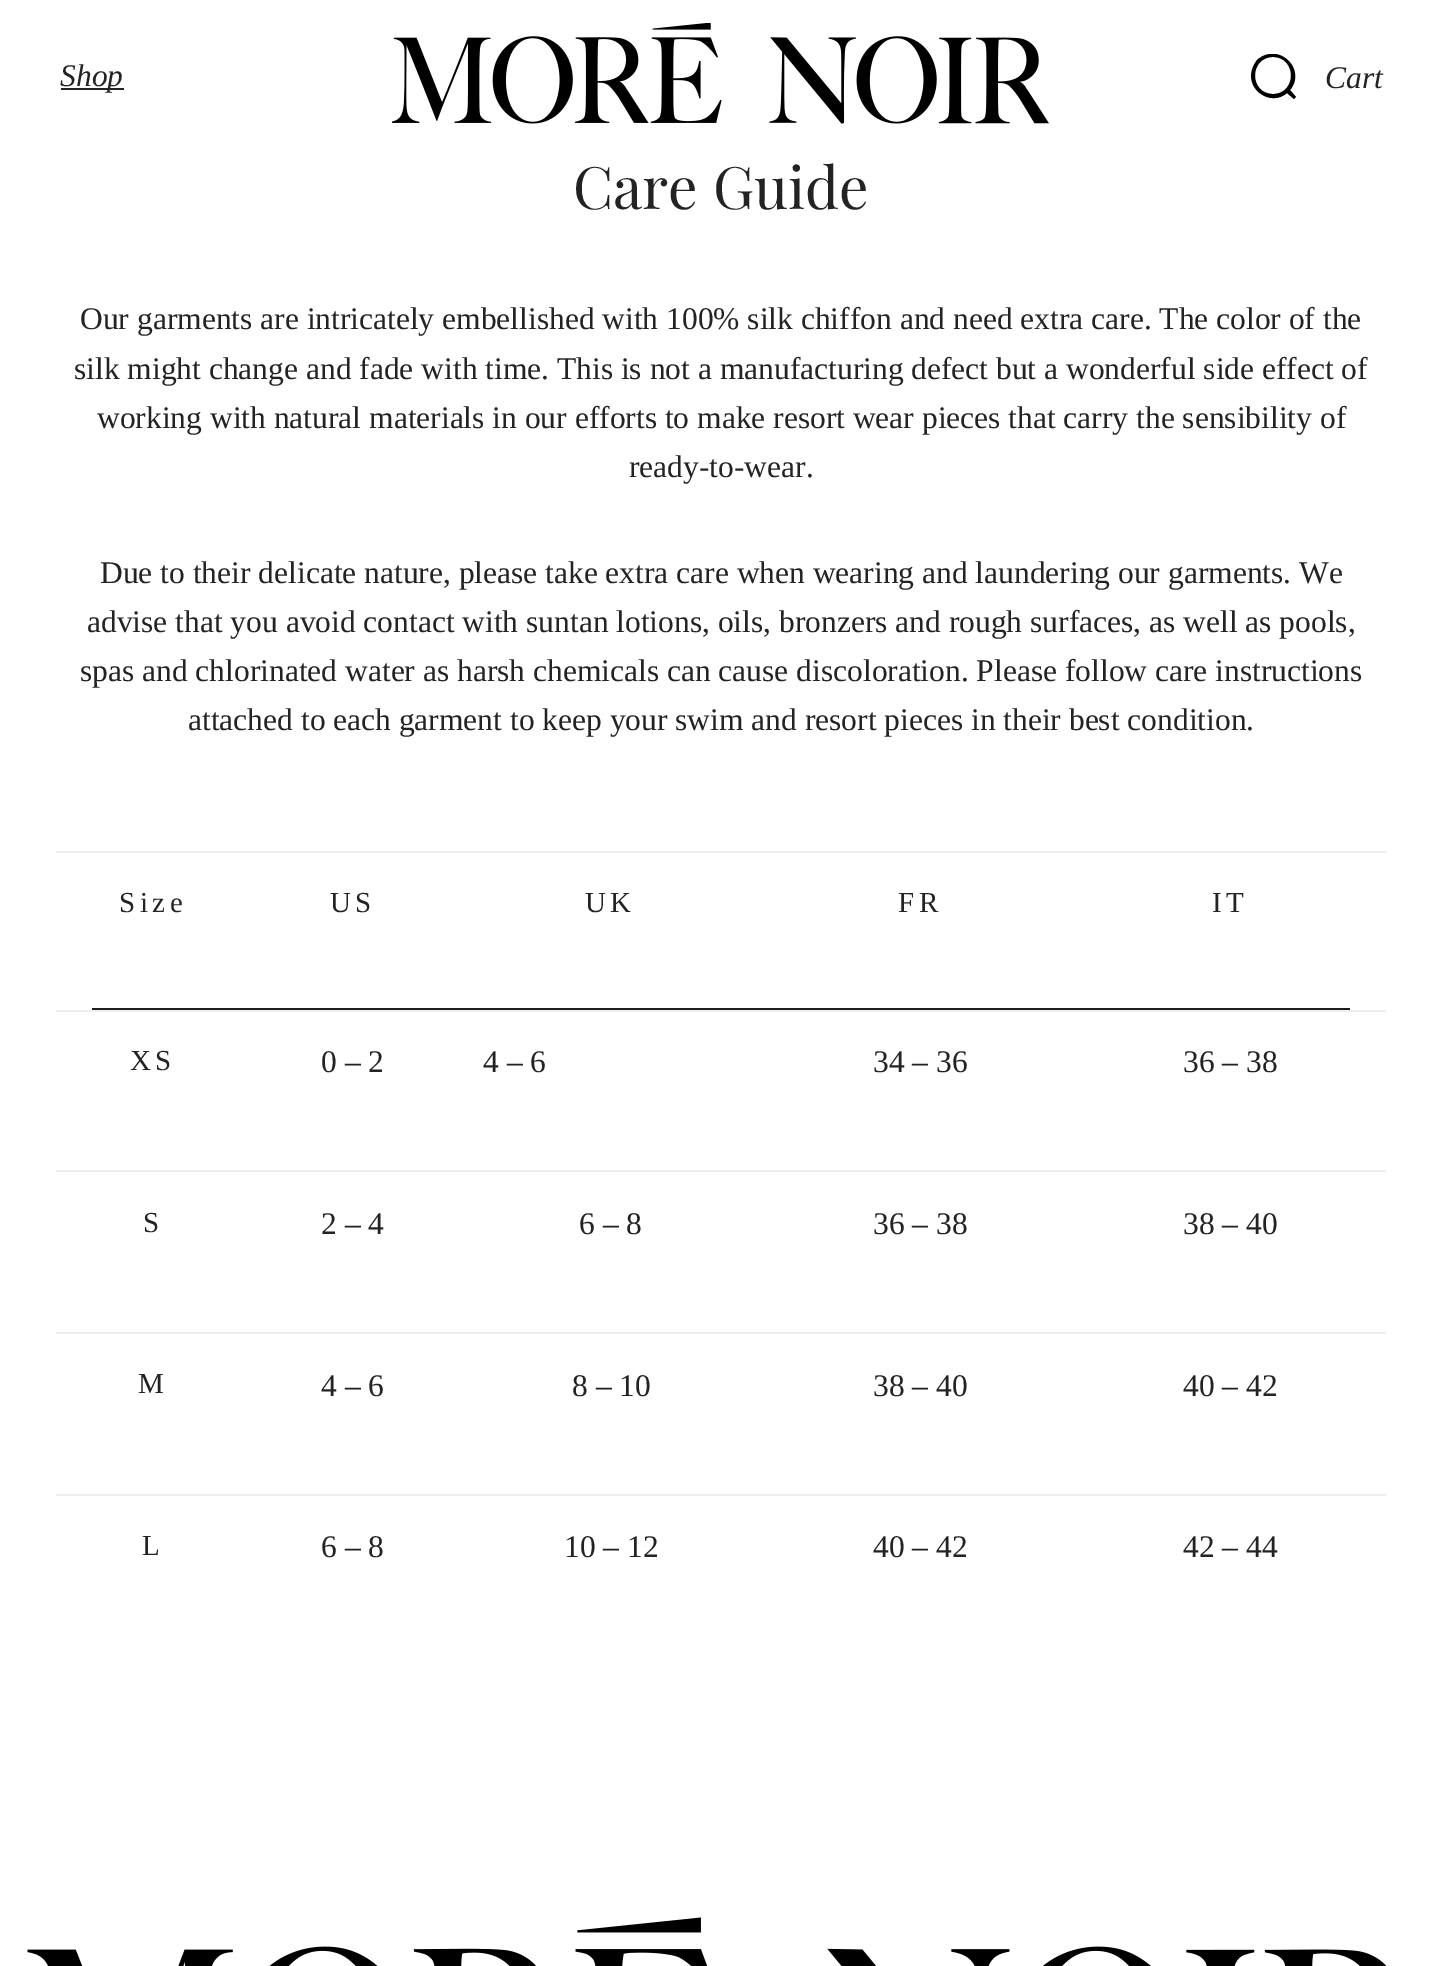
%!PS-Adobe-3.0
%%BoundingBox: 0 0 1441 1966
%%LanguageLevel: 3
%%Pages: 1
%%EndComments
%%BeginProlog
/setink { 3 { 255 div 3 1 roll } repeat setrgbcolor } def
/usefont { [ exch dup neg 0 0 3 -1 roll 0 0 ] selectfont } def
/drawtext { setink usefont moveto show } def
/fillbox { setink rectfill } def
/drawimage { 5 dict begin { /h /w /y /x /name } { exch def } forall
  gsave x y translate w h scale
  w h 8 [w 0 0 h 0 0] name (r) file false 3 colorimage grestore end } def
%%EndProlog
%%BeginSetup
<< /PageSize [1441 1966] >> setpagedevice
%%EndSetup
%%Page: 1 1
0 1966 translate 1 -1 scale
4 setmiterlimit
0 0 1441 1966 255 255 255 fillbox
61 88 63 2 34 35 35 fillbox
(Shop) 60 86 /LiberationSerif-Italic 31.5 34 35 35 drawtext
(assets/img1.rgb) 392 23 657 101 drawimage
gsave
1251 54 45 45 rectclip
0 0 0 setink
1296 97 moveto 1290 90 lineto 1307 70 1279 41 1257 60 curveto 1255 63 1253 66 1252 70 curveto 1246 90 1271 107 1287 93 curveto 1294 99 lineto closepath 1273 94 moveto 1249 94 1249 57 1273 57 curveto 1297 57 1297 94 1273 94 curveto closepath fill
grestore
(Cart) 1325 88 /LiberationSerif-Italic 31.5 34 35 35 drawtext
(Care Guide) 573 209 /PlayfairDisplay-Regular 58.5 34 35 35 drawtext
(Our garments are intricately embellished with 100% silk chiffon and need extra care. The color of the) 80 329 /LiberationSerif-Regular 31.5 34 35 35 drawtext
(silk might change and fade with time. This is not a manufacturing defect but a wonderful side effect of) 74 379 /LiberationSerif-Regular 31.5 34 35 35 drawtext
(working with natural materials in our efforts to make resort wear pieces that carry the sensibility of) 97 428 /LiberationSerif-Regular 31.5 34 35 35 drawtext
(ready-to-wear.) 629 477 /LiberationSerif-Regular 31.5 34 35 35 drawtext
(Due to their delicate nature, please take extra care when wearing and laundering our garments. We) 100 583 /LiberationSerif-Regular 31.5 34 35 35 drawtext
(advise that you avoid contact with suntan lotions, oils, bronzers and rough surfaces, as well as pools,) 87 632 /LiberationSerif-Regular 31.5 34 35 35 drawtext
(spas and chlorinated water as harsh chemicals can cause discoloration. Please follow care instructions) 80 681 /LiberationSerif-Regular 31.5 34 35 35 drawtext
(attached to each garment to keep your swim and resort pieces in their best condition.) 188 730 /LiberationSerif-Regular 31.5 34 35 35 drawtext
/LiberationSerif-Regular 29 usefont
119 912 moveto 4.5 0 (Size) ashow
92 1008 1258 2 28 29 29 fillbox
34 35 35 setink
330 912 moveto 4.5 0 (US) ashow
585 912 moveto 4.5 0 (UK) ashow
898 912 moveto 4.5 0 (FR) ashow
56 851 1330 2 236 238 239 fillbox
34 35 35 setink
1212 912 moveto 4.5 0 (IT) ashow
130 1070 moveto 4.5 0 (XS) ashow
(0 – 2) 321 1072 /LiberationSerif-Regular 31.5 34 35 35 drawtext
(4 – 6) 483 1072 /LiberationSerif-Regular 31.5 34 35 35 drawtext
(34 – 36) 873 1072 /LiberationSerif-Regular 31.5 34 35 35 drawtext
56 1010 1330 2 236 238 239 fillbox
(36 – 38) 1183 1072 /LiberationSerif-Regular 31.5 34 35 35 drawtext
/LiberationSerif-Regular 29 usefont
143 1232 moveto 4.5 0 (S) ashow
(2 – 4) 321 1234 /LiberationSerif-Regular 31.5 34 35 35 drawtext
(6 – 8) 579 1234 /LiberationSerif-Regular 31.5 34 35 35 drawtext
(36 – 38) 873 1234 /LiberationSerif-Regular 31.5 34 35 35 drawtext
56 1170 1330 2 236 238 239 fillbox
(38 – 40) 1183 1234 /LiberationSerif-Regular 31.5 34 35 35 drawtext
/LiberationSerif-Regular 29 usefont
138 1393 moveto 4.5 0 (M) ashow
(4 – 6) 321 1396 /LiberationSerif-Regular 31.5 34 35 35 drawtext
(8 – 10) 572 1396 /LiberationSerif-Regular 31.5 34 35 35 drawtext
(38 – 40) 873 1396 /LiberationSerif-Regular 31.5 34 35 35 drawtext
56 1332 1330 2 236 238 239 fillbox
(40 – 42) 1183 1396 /LiberationSerif-Regular 31.5 34 35 35 drawtext
/LiberationSerif-Regular 29 usefont
142 1555 moveto 4.5 0 (L) ashow
(6 – 8) 321 1557 /LiberationSerif-Regular 31.5 34 35 35 drawtext
(10 – 12) 564 1557 /LiberationSerif-Regular 31.5 34 35 35 drawtext
(40 – 42) 873 1557 /LiberationSerif-Regular 31.5 34 35 35 drawtext
56 1494 1330 2 236 238 239 fillbox
(42 – 44) 1183 1557 /LiberationSerif-Regular 31.5 34 35 35 drawtext
(assets/img2.rgb) 27 1917 1360 49 drawimage
showpage
%%EOF
